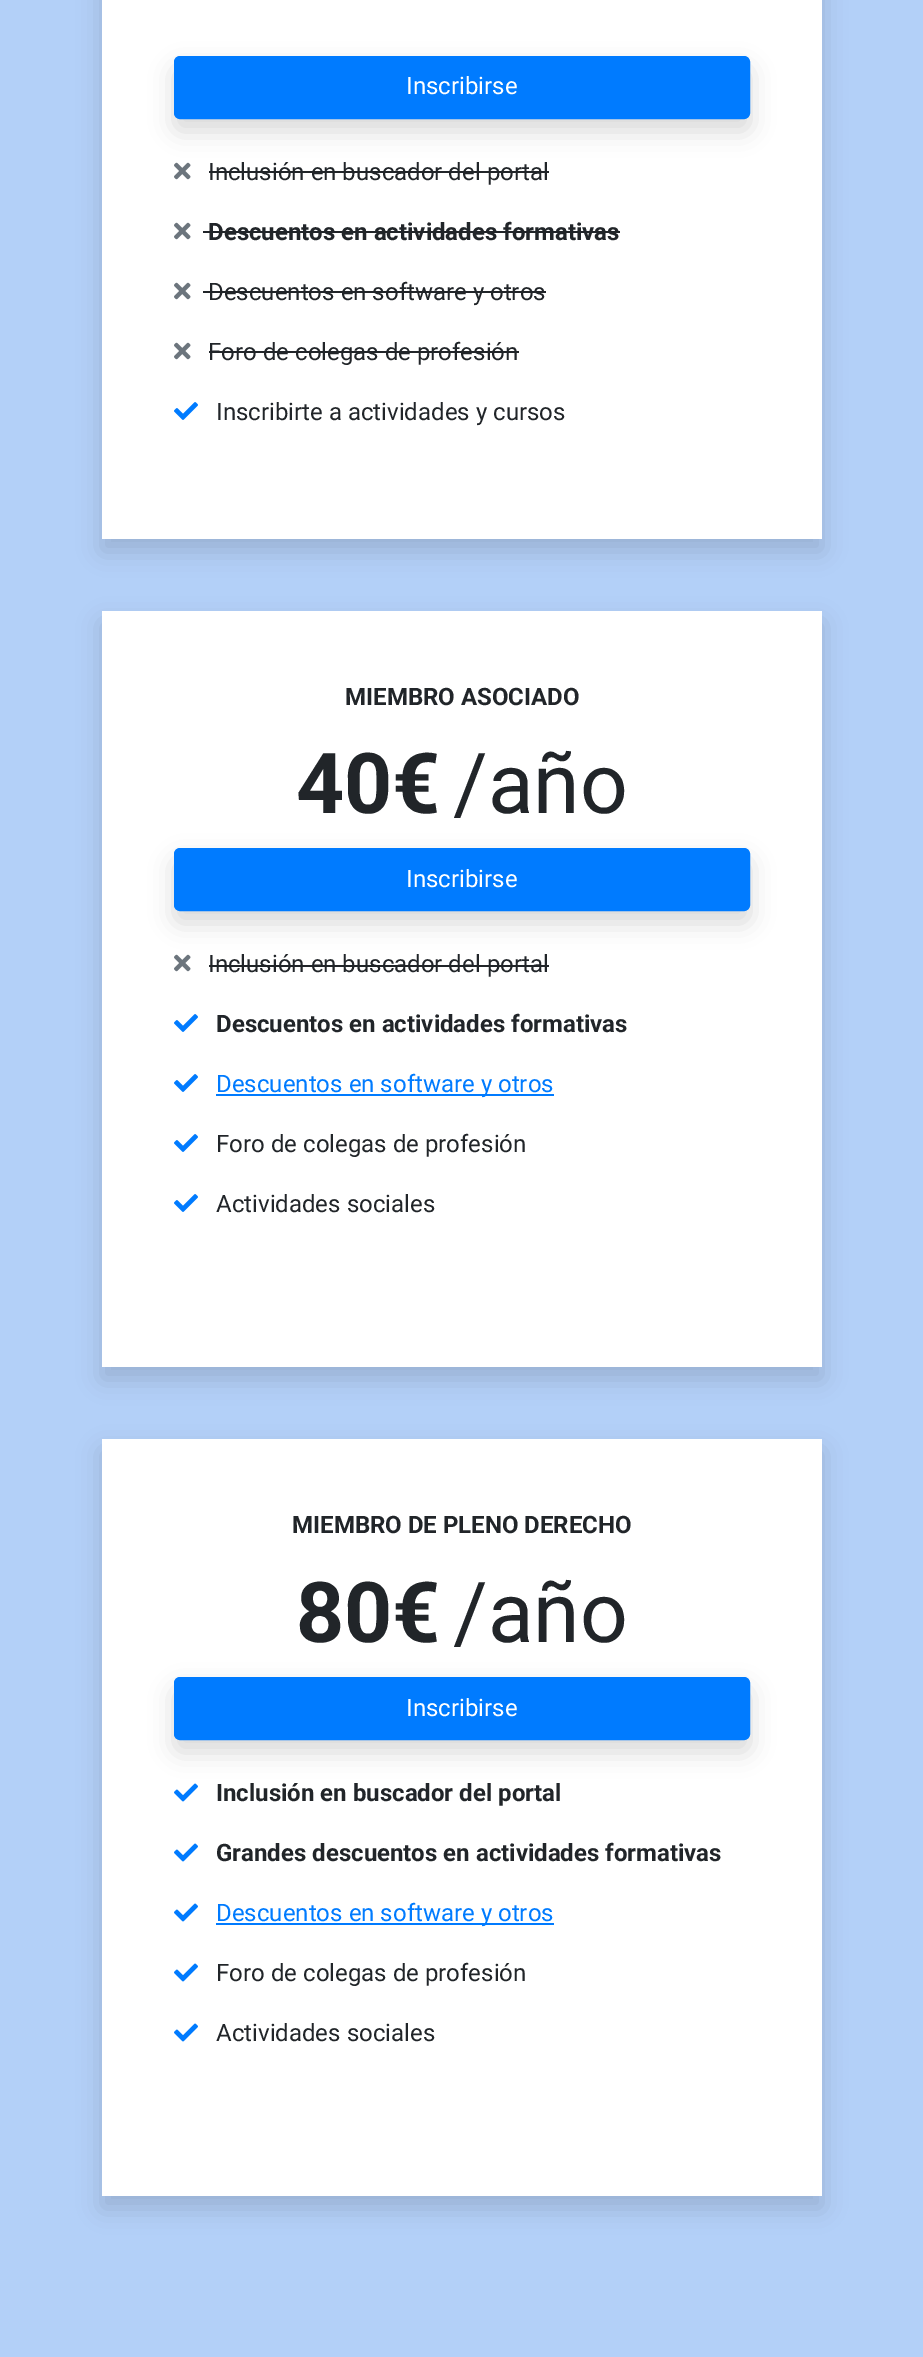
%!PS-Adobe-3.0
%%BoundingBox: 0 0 923 2357
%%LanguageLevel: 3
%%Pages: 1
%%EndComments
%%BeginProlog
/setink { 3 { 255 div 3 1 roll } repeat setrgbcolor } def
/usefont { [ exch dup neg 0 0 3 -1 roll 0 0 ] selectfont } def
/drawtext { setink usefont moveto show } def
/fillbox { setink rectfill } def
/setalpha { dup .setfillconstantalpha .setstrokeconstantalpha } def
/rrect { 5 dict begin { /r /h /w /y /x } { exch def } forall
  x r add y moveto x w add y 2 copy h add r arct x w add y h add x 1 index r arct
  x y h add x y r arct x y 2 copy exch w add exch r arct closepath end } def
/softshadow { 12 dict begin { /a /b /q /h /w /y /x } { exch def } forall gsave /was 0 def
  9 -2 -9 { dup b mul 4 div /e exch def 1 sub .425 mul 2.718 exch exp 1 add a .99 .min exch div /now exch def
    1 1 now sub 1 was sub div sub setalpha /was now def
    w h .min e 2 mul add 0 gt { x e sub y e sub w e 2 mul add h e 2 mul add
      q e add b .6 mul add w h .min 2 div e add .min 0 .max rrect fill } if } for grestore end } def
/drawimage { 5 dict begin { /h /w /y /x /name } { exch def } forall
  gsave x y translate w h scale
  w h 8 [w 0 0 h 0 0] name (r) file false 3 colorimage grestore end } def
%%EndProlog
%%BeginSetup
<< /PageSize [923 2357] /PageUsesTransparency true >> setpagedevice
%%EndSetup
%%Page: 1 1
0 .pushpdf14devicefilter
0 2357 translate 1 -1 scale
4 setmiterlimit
0 0 923 2357 179 208 248 fillbox
0 0 0 setink
102 -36 720 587 0 12 0.15 softshadow
102 0 720 539 255 255 255 fillbox
0 0 0 setink
174 68 576 63 6 12 0.15 softshadow
0 123 255 setink
175 57 574 61 5 rrect gsave fill grestore
2 setlinewidth
stroke
(Inscribirse) 406 94 /Roboto-Regular 24 255 255 255 drawtext
(assets/img1.rgb) 174 162 17 18 drawimage
(Inclusión en buscador del portal) 208 180 /Roboto-Regular 24 33 37 41 drawtext
209 171 340 2 33 37 41 fillbox
(assets/img2.rgb) 174 222 17 18 drawimage
(Descuentos en actividades formativas) 208 240 /Roboto-Bold 24 33 37 41 drawtext
203 231 417 2 33 37 41 fillbox
(assets/img2.rgb) 174 282 17 18 drawimage
(Descuentos en software y otros) 208 300 /Roboto-Regular 24 33 37 41 drawtext
203 291 343 2 33 37 41 fillbox
(assets/img2.rgb) 174 342 17 18 drawimage
(Foro de colegas de profesión) 208 360 /Roboto-Regular 24 33 37 41 drawtext
209 351 310 2 33 37 41 fillbox
(assets/img3.rgb) 174 402 24 18 drawimage
(Inscribirte a actividades y cursos) 216 420 /Roboto-Regular 24 33 37 41 drawtext
0 0 0 setink
102 623 720 756 0 12 0.15 softshadow
102 611 720 756 255 255 255 fillbox
(MIEMBRO ASOCIADO) 345 705 /Roboto-Bold 24 33 37 41 drawtext
(40€) 296 813 /Roboto-Bold 84 33 37 41 drawtext
(/año) 453 813 /Roboto-Regular 84 33 37 41 drawtext
0 0 0 setink
174 860 576 63 6 12 0.15 softshadow
0 123 255 setink
175 849 574 61 5 rrect gsave fill grestore
stroke
(Inscribirse) 406 887 /Roboto-Regular 24 255 255 255 drawtext
(assets/img1.rgb) 174 954 17 18 drawimage
(Inclusión en buscador del portal) 208 972 /Roboto-Regular 24 33 37 41 drawtext
209 965 340 2 33 37 41 fillbox
(assets/img3.rgb) 174 1014 24 18 drawimage
(Descuentos en actividades formativas) 216 1032 /Roboto-Bold 24 33 37 41 drawtext
(assets/img3.rgb) 174 1074 24 18 drawimage
216 1094 338 2 0 123 255 fillbox
(Descuentos en software y otros) 216 1092 /Roboto-Regular 24 0 123 255 drawtext
(assets/img3.rgb) 174 1134 24 18 drawimage
(Foro de colegas de profesión) 216 1152 /Roboto-Regular 24 33 37 41 drawtext
(assets/img3.rgb) 174 1194 24 18 drawimage
(Actividades sociales) 216 1212 /Roboto-Regular 24 33 37 41 drawtext
0 0 0 setink
102 1451 720 757 0 12 0.15 softshadow
102 1439 720 757 255 255 255 fillbox
(MIEMBRO DE PLENO DERECHO) 292 1533 /Roboto-Bold 24 33 37 41 drawtext
(80€) 296 1642 /Roboto-Bold 84 33 37 41 drawtext
(/año) 453 1642 /Roboto-Regular 84 33 37 41 drawtext
0 0 0 setink
174 1689 576 63 6 12 0.15 softshadow
0 123 255 setink
175 1678 574 61 5 rrect gsave fill grestore
stroke
(Inscribirse) 406 1716 /Roboto-Regular 24 255 255 255 drawtext
(assets/img4.rgb) 174 1783 24 19 drawimage
(Inclusión en buscador del portal) 216 1801 /Roboto-Bold 24 33 37 41 drawtext
(assets/img4.rgb) 174 1843 24 19 drawimage
(Grandes descuentos en actividades formativas) 216 1861 /Roboto-Bold 24 33 37 41 drawtext
(assets/img4.rgb) 174 1903 24 19 drawimage
216 1923 338 2 0 123 255 fillbox
(Descuentos en software y otros) 216 1921 /Roboto-Regular 24 0 123 255 drawtext
(assets/img4.rgb) 174 1963 24 19 drawimage
(Foro de colegas de profesión) 216 1981 /Roboto-Regular 24 33 37 41 drawtext
(assets/img4.rgb) 174 2023 24 19 drawimage
(Actividades sociales) 216 2041 /Roboto-Regular 24 33 37 41 drawtext
.poppdf14devicefilter showpage
%%EOF
